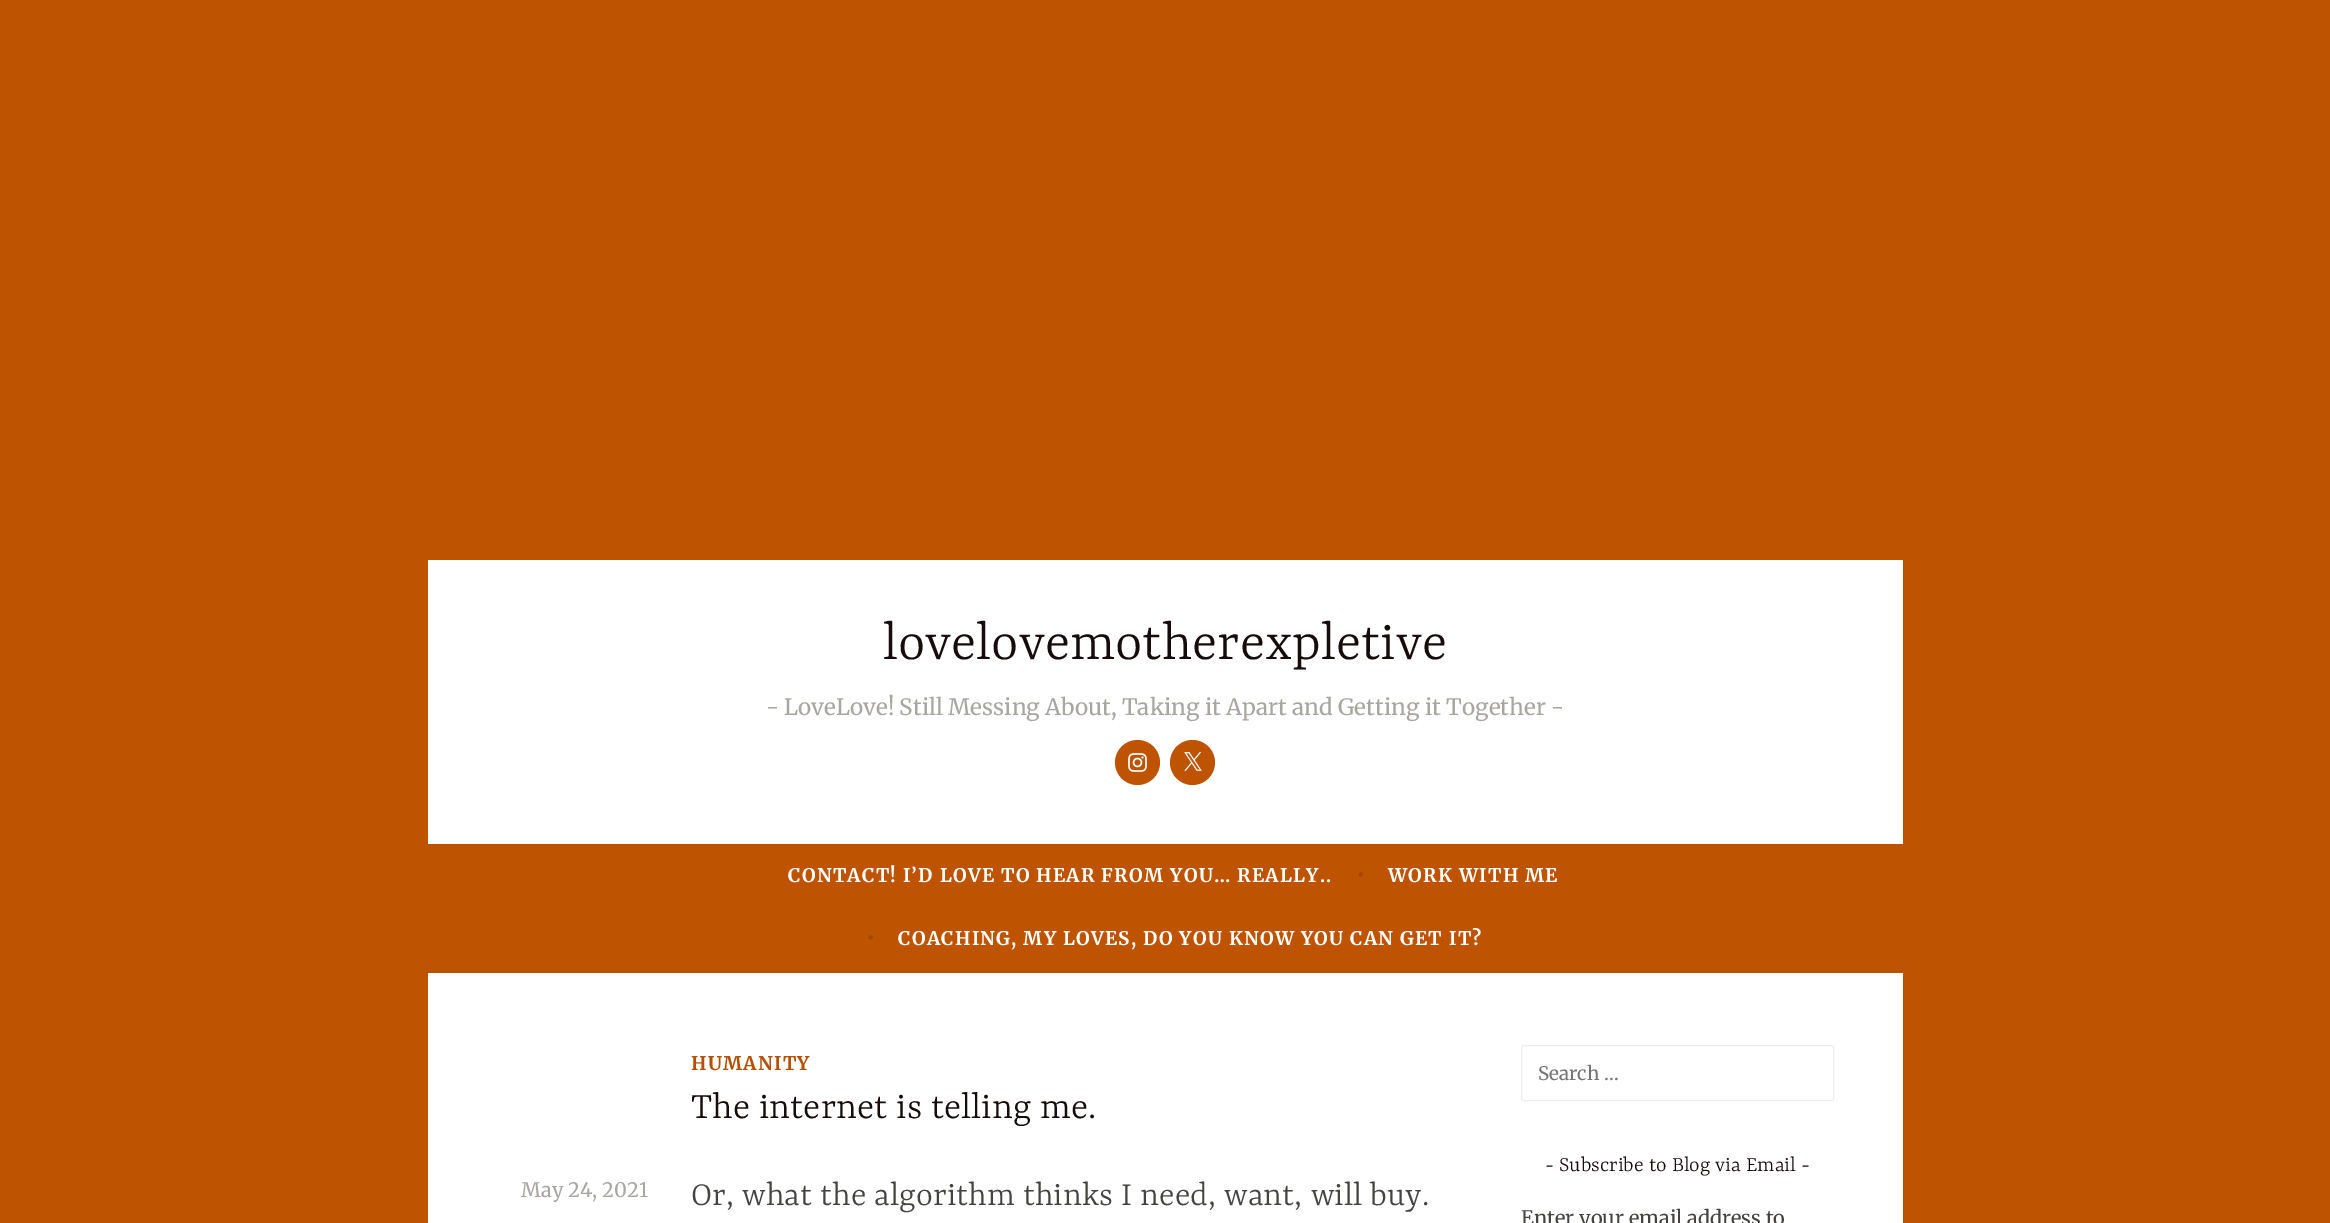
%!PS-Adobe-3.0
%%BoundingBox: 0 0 2330 1223
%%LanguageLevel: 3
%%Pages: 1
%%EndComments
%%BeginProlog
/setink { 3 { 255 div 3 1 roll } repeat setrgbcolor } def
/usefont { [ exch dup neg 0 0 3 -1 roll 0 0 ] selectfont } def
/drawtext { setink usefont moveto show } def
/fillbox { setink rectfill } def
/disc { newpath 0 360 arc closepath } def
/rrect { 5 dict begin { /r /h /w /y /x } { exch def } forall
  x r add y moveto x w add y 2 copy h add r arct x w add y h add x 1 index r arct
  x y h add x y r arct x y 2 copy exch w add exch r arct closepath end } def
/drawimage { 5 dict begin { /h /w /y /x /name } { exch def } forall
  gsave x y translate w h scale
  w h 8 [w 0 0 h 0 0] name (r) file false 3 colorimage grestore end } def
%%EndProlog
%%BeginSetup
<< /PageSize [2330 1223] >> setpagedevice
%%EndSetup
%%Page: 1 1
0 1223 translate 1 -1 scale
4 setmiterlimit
0 0 2330 1223 190 84 2 fillbox
428 560 1475 284 255 255 255 fillbox
(lovelovemotherexpletive) 883 659 /Yrsa-Light 58.75 23 12 12 drawtext
(- LoveLove! Still Messing About, Taking it Apart and Getting it Together -) 766 715 /Merriweather-Regular 22.5 168 166 161 drawtext
190 84 2 setink
1137.5 762.5 22.5 disc fill
(assets/img1.rgb) 1128 753 19 19 drawimage
1192.5 762.5 22.5 disc fill
(assets/img2.rgb) 1184 752 18 19 drawimage
428 970 1475 3 184 81 2 fillbox
/Merriweather-Bold 18.75 usefont
255 255 255 setink
788 882 moveto 1.25 0 (CONTACT! I’D LOVE TO HEAR FROM YOU… REALLY..) ashow
(•) 1356 882 /Merriweather-Regular 22.5 162 71 2 drawtext
/Merriweather-Bold 18.75 usefont
255 255 255 setink
1388 882 moveto 1.25 0 (WORK WITH ME) ashow
(•) 866 945 /Merriweather-Regular 22.5 162 71 2 drawtext
/Merriweather-Bold 18.75 usefont
255 255 255 setink
898 945 moveto 1.25 0 (COACHING, MY LOVES, DO YOU KNOW YOU CAN GET IT?) ashow
428 973 1475 250 255 255 255 fillbox
182 79 0 setink
691 1070 moveto 1.25 0 (HUMANITY) ashow
(The internet is telling me.) 691 1118 /Yrsa-Light 40 23 12 12 drawtext
(May 24, 2021) 521 1197 /Merriweather-Regular 20 168 166 161 drawtext
(Or, what the algorithm thinks I need, want, will buy.) 691 1205 /Yrsa-Light 36.25 68 67 64 drawtext
238 238 238 setink
1521.5 1045.5 312 55 2 rrect stroke
(Search …) 1538 1080 /Merriweather-Regular 18.75 117 117 117 drawtext
(- Subscribe to Blog via Email -) 1545 1171 /Yrsa-Light 22.5 23 12 12 drawtext
(Enter your email address to) 1521 1225 /Merriweather-Regular 20 68 67 64 drawtext
showpage
%%EOF
